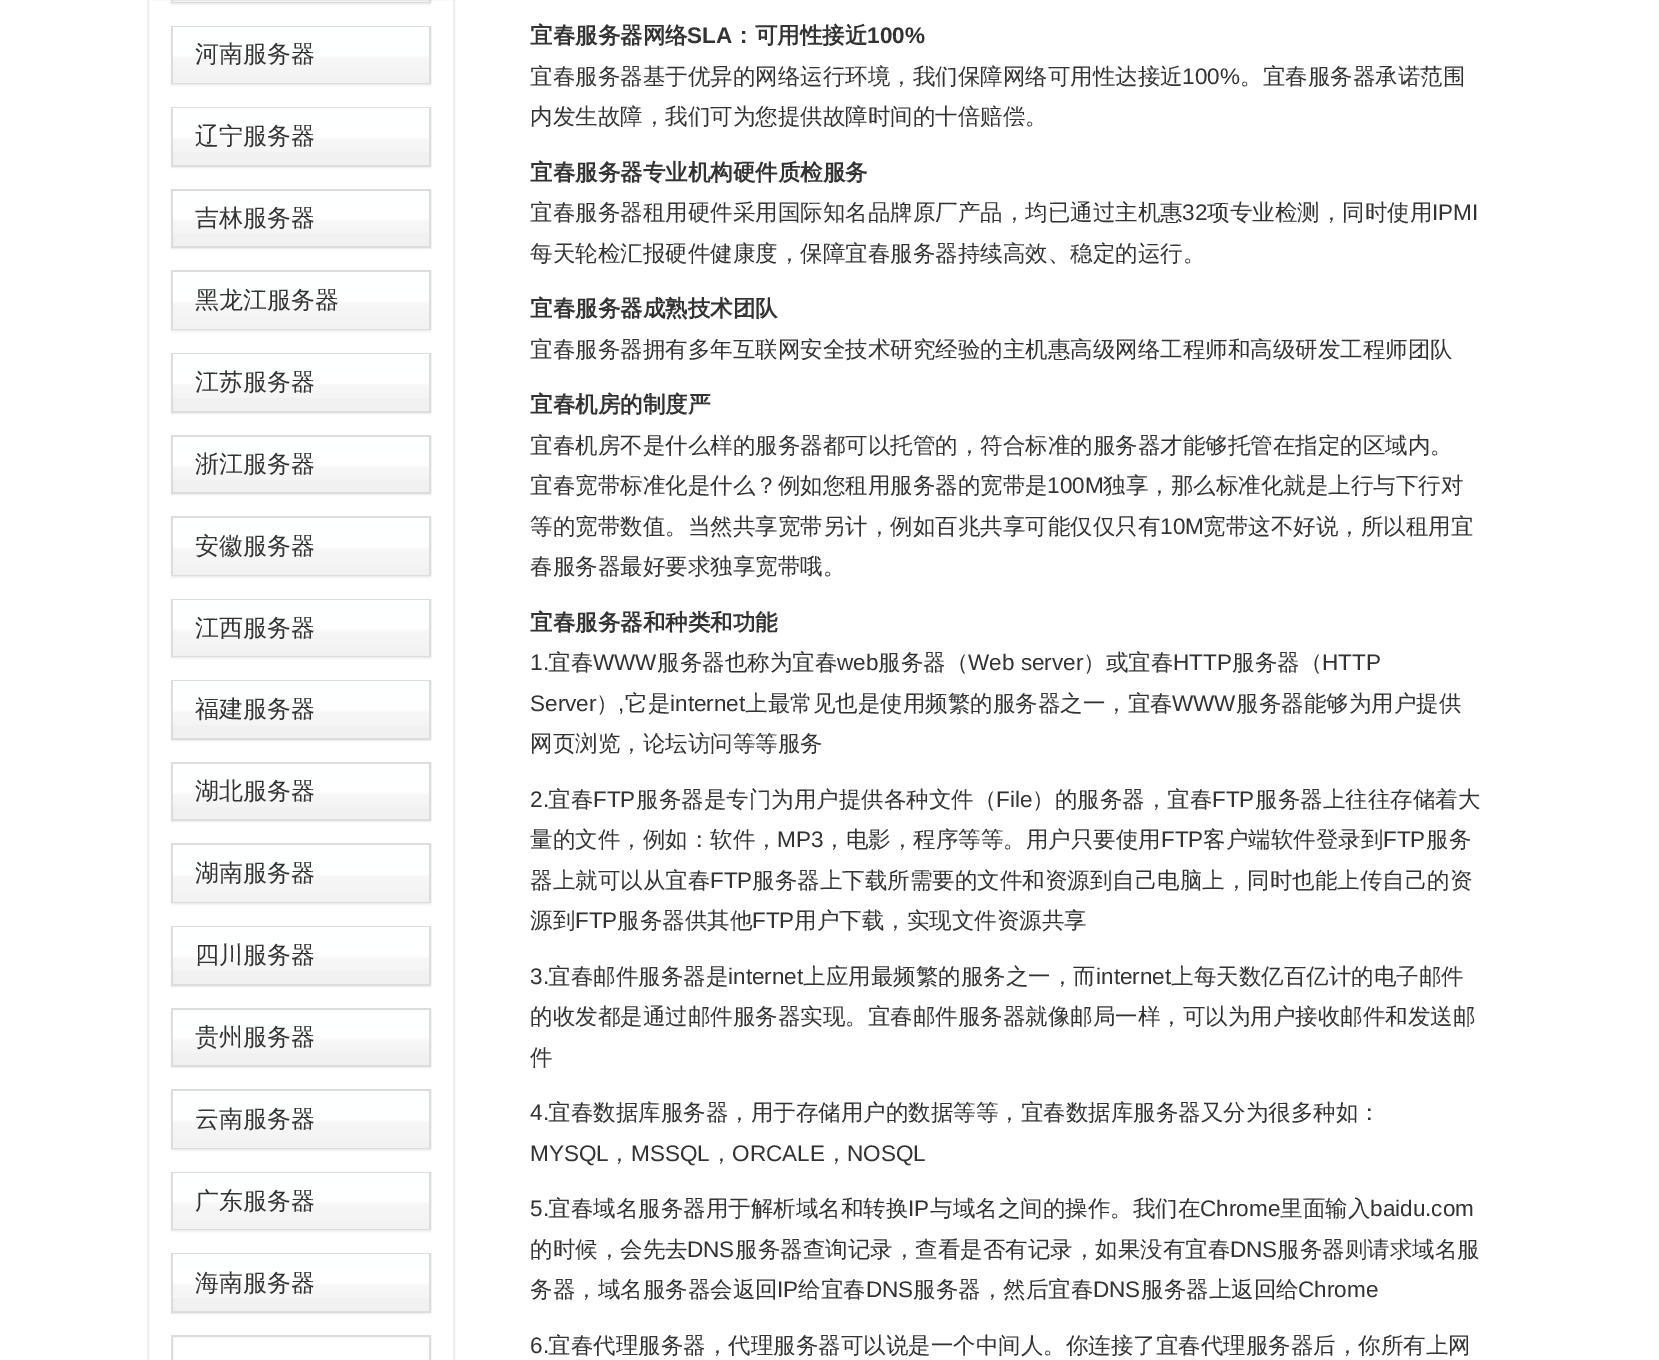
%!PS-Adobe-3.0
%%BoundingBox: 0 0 1659 1360
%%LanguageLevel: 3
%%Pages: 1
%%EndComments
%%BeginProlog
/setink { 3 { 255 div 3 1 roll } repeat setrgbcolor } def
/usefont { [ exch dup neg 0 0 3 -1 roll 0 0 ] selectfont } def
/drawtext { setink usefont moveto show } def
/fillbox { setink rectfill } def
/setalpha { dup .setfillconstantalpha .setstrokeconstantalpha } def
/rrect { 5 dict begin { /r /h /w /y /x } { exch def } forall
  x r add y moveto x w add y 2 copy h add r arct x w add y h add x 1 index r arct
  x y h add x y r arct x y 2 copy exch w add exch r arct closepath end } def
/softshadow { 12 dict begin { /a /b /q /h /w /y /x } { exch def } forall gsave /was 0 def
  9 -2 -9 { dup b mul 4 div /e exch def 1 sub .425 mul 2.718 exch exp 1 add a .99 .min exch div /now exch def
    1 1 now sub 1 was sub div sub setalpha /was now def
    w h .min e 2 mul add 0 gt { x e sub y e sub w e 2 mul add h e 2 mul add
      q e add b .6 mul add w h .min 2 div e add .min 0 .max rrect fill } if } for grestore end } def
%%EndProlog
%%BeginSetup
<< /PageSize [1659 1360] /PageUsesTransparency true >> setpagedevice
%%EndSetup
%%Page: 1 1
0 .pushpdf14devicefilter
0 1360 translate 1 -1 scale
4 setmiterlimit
0 0 1659 1360 255 255 255 fillbox
238 238 238 setink
2 setlinewidth
148 -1 306 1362 rectstroke
0 0 0 setink
171 -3 260 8 0 1 0.05 softshadow
221 221 221 setink
172 -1 258 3 rectstroke
gsave 173 1 moveto 429 1 lineto 429 2 lineto 173 2 lineto closepath clip newpath
<< /ShadingType 2 /ColorSpace /DeviceRGB /Coords [301 -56 301 1.5] /Extend [true true] /Function << /FunctionType 3 /Domain [0 1] /Functions [<< /FunctionType 2 /Domain [0 1] /C0 [0.996 1 1] /C1 [1 1 1] /N 1 >> << /FunctionType 2 /Domain [0 1] /C0 [1 1 1] /C1 [0.969 0.969 0.969] /N 1 >> << /FunctionType 2 /Domain [0 1] /C0 [0.969 0.969 0.969] /C1 [0.949 0.949 0.949] /N 1 >>] /Bounds [0.51 0.55] /Encode [0 1 0 1 0 1] >> >> shfill grestore
0 0 0 setink
171 27 260 59 0 1 0.05 softshadow
221 221 221 setink
172 27 258 56 rectstroke
gsave 173 27 moveto 429 27 lineto 429 83 lineto 173 83 lineto closepath clip newpath
<< /ShadingType 2 /ColorSpace /DeviceRGB /Coords [301 27 301 83] /Extend [true true] /Function << /FunctionType 3 /Domain [0 1] /Functions [<< /FunctionType 2 /Domain [0 1] /C0 [0.996 1 1] /C1 [1 1 1] /N 1 >> << /FunctionType 2 /Domain [0 1] /C0 [1 1 1] /C1 [0.969 0.969 0.969] /N 1 >> << /FunctionType 2 /Domain [0 1] /C0 [0.969 0.969 0.969] /C1 [0.949 0.949 0.949] /N 1 >>] /Bounds [0.51 0.55] /Encode [0 1 0 1 0 1] >> >> shfill grestore
(河南服务器) 195 62 /WenQuanYiZenHei-Medium 24 51 51 51 drawtext
0 0 0 setink
171 108 260 60 0 1 0.05 softshadow
221 221 221 setink
172 108 258 58 rectstroke
gsave 173 108 moveto 429 108 lineto 429 152 lineto 173 152 lineto closepath clip newpath
<< /ShadingType 2 /ColorSpace /DeviceRGB /Coords [301 108 301 165] /Extend [true true] /Function << /FunctionType 3 /Domain [0 1] /Functions [<< /FunctionType 2 /Domain [0 1] /C0 [0.996 1 1] /C1 [1 1 1] /N 1 >> << /FunctionType 2 /Domain [0 1] /C0 [1 1 1] /C1 [0.969 0.969 0.969] /N 1 >> << /FunctionType 2 /Domain [0 1] /C0 [0.969 0.969 0.969] /C1 [0.949 0.949 0.949] /N 1 >>] /Bounds [0.51 0.55] /Encode [0 1 0 1 0 1] >> >> shfill grestore
(辽宁服务器) 195 144 /WenQuanYiZenHei-Medium 24 51 51 51 drawtext
0 0 0 setink
171 191 260 58 0 1 0.05 softshadow
221 221 221 setink
172 190 258 57 rectstroke
gsave 173 191 moveto 429 191 lineto 429 233 lineto 173 233 lineto closepath clip newpath
<< /ShadingType 2 /ColorSpace /DeviceRGB /Coords [301 190 301 246] /Extend [true true] /Function << /FunctionType 3 /Domain [0 1] /Functions [<< /FunctionType 2 /Domain [0 1] /C0 [0.996 1 1] /C1 [1 1 1] /N 1 >> << /FunctionType 2 /Domain [0 1] /C0 [1 1 1] /C1 [0.969 0.969 0.969] /N 1 >> << /FunctionType 2 /Domain [0 1] /C0 [0.969 0.969 0.969] /C1 [0.949 0.949 0.949] /N 1 >>] /Bounds [0.51 0.55] /Encode [0 1 0 1 0 1] >> >> shfill grestore
(吉林服务器) 195 226 /WenQuanYiZenHei-Medium 24 51 51 51 drawtext
0 0 0 setink
171 272 260 60 0 1 0.05 softshadow
221 221 221 setink
172 271 258 58 rectstroke
gsave 173 272 moveto 429 272 lineto 429 329 lineto 173 329 lineto closepath clip newpath
<< /ShadingType 2 /ColorSpace /DeviceRGB /Coords [301 272 301 329] /Extend [true true] /Function << /FunctionType 3 /Domain [0 1] /Functions [<< /FunctionType 2 /Domain [0 1] /C0 [0.996 1 1] /C1 [1 1 1] /N 1 >> << /FunctionType 2 /Domain [0 1] /C0 [1 1 1] /C1 [0.969 0.969 0.969] /N 1 >> << /FunctionType 2 /Domain [0 1] /C0 [0.969 0.969 0.969] /C1 [0.949 0.949 0.949] /N 1 >>] /Bounds [0.51 0.55] /Encode [0 1 0 1 0 1] >> >> shfill grestore
(黑龙江服务器) 195 308 /WenQuanYiZenHei-Medium 24 51 51 51 drawtext
0 0 0 setink
171 354 260 60 0 1 0.05 softshadow
221 221 221 setink
172 354 258 58 rectstroke
gsave 173 354 moveto 429 354 lineto 429 398 lineto 173 398 lineto closepath clip newpath
<< /ShadingType 2 /ColorSpace /DeviceRGB /Coords [301 354 301 411] /Extend [true true] /Function << /FunctionType 3 /Domain [0 1] /Functions [<< /FunctionType 2 /Domain [0 1] /C0 [0.996 1 1] /C1 [1 1 1] /N 1 >> << /FunctionType 2 /Domain [0 1] /C0 [1 1 1] /C1 [0.969 0.969 0.969] /N 1 >> << /FunctionType 2 /Domain [0 1] /C0 [0.969 0.969 0.969] /C1 [0.949 0.949 0.949] /N 1 >>] /Bounds [0.51 0.55] /Encode [0 1 0 1 0 1] >> >> shfill grestore
(江苏服务器) 195 390 /WenQuanYiZenHei-Medium 24 51 51 51 drawtext
0 0 0 setink
171 437 260 58 0 1 0.05 softshadow
221 221 221 setink
172 436 258 57 rectstroke
gsave 173 437 moveto 429 437 lineto 429 480 lineto 173 480 lineto closepath clip newpath
<< /ShadingType 2 /ColorSpace /DeviceRGB /Coords [301 437 301 492] /Extend [true true] /Function << /FunctionType 3 /Domain [0 1] /Functions [<< /FunctionType 2 /Domain [0 1] /C0 [0.996 1 1] /C1 [1 1 1] /N 1 >> << /FunctionType 2 /Domain [0 1] /C0 [1 1 1] /C1 [0.969 0.969 0.969] /N 1 >> << /FunctionType 2 /Domain [0 1] /C0 [0.969 0.969 0.969] /C1 [0.949 0.949 0.949] /N 1 >>] /Bounds [0.51 0.55] /Encode [0 1 0 1 0 1] >> >> shfill grestore
(浙江服务器) 195 472 /WenQuanYiZenHei-Medium 24 51 51 51 drawtext
0 0 0 setink
171 518 260 60 0 1 0.05 softshadow
221 221 221 setink
172 517 258 58 rectstroke
gsave 173 518 moveto 429 518 lineto 429 575 lineto 173 575 lineto closepath clip newpath
<< /ShadingType 2 /ColorSpace /DeviceRGB /Coords [301 518 301 575] /Extend [true true] /Function << /FunctionType 3 /Domain [0 1] /Functions [<< /FunctionType 2 /Domain [0 1] /C0 [0.996 1 1] /C1 [1 1 1] /N 1 >> << /FunctionType 2 /Domain [0 1] /C0 [1 1 1] /C1 [0.969 0.969 0.969] /N 1 >> << /FunctionType 2 /Domain [0 1] /C0 [0.969 0.969 0.969] /C1 [0.949 0.949 0.949] /N 1 >>] /Bounds [0.51 0.55] /Encode [0 1 0 1 0 1] >> >> shfill grestore
(安徽服务器) 195 554 /WenQuanYiZenHei-Medium 24 51 51 51 drawtext
0 0 0 setink
171 600 260 59 0 1 0.05 softshadow
221 221 221 setink
172 600 258 56 rectstroke
gsave 173 600 moveto 429 600 lineto 429 656 lineto 173 656 lineto closepath clip newpath
<< /ShadingType 2 /ColorSpace /DeviceRGB /Coords [301 600 301 656] /Extend [true true] /Function << /FunctionType 3 /Domain [0 1] /Functions [<< /FunctionType 2 /Domain [0 1] /C0 [0.996 1 1] /C1 [1 1 1] /N 1 >> << /FunctionType 2 /Domain [0 1] /C0 [1 1 1] /C1 [0.969 0.969 0.969] /N 1 >> << /FunctionType 2 /Domain [0 1] /C0 [0.969 0.969 0.969] /C1 [0.949 0.949 0.949] /N 1 >>] /Bounds [0.51 0.55] /Encode [0 1 0 1 0 1] >> >> shfill grestore
(江西服务器) 195 636 /WenQuanYiZenHei-Medium 24 51 51 51 drawtext
0 0 0 setink
171 681 260 60 0 1 0.05 softshadow
221 221 221 setink
172 681 258 58 rectstroke
gsave 173 681 moveto 429 681 lineto 429 725 lineto 173 725 lineto closepath clip newpath
<< /ShadingType 2 /ColorSpace /DeviceRGB /Coords [301 681 301 738] /Extend [true true] /Function << /FunctionType 3 /Domain [0 1] /Functions [<< /FunctionType 2 /Domain [0 1] /C0 [0.996 1 1] /C1 [1 1 1] /N 1 >> << /FunctionType 2 /Domain [0 1] /C0 [1 1 1] /C1 [0.969 0.969 0.969] /N 1 >> << /FunctionType 2 /Domain [0 1] /C0 [0.969 0.969 0.969] /C1 [0.949 0.949 0.949] /N 1 >>] /Bounds [0.51 0.55] /Encode [0 1 0 1 0 1] >> >> shfill grestore
(福建服务器) 195 717 /WenQuanYiZenHei-Medium 24 51 51 51 drawtext
0 0 0 setink
171 764 260 58 0 1 0.05 softshadow
221 221 221 setink
172 763 258 57 rectstroke
gsave 173 764 moveto 429 764 lineto 429 807 lineto 173 807 lineto closepath clip newpath
<< /ShadingType 2 /ColorSpace /DeviceRGB /Coords [301 764 301 819] /Extend [true true] /Function << /FunctionType 3 /Domain [0 1] /Functions [<< /FunctionType 2 /Domain [0 1] /C0 [0.996 1 1] /C1 [1 1 1] /N 1 >> << /FunctionType 2 /Domain [0 1] /C0 [1 1 1] /C1 [0.969 0.969 0.969] /N 1 >> << /FunctionType 2 /Domain [0 1] /C0 [0.969 0.969 0.969] /C1 [0.949 0.949 0.949] /N 1 >>] /Bounds [0.51 0.55] /Encode [0 1 0 1 0 1] >> >> shfill grestore
(湖北服务器) 195 799 /WenQuanYiZenHei-Medium 24 51 51 51 drawtext
0 0 0 setink
171 845 260 60 0 1 0.05 softshadow
221 221 221 setink
172 844 258 58 rectstroke
gsave 173 845 moveto 429 845 lineto 429 902 lineto 173 902 lineto closepath clip newpath
<< /ShadingType 2 /ColorSpace /DeviceRGB /Coords [301 845 301 902] /Extend [true true] /Function << /FunctionType 3 /Domain [0 1] /Functions [<< /FunctionType 2 /Domain [0 1] /C0 [0.996 1 1] /C1 [1 1 1] /N 1 >> << /FunctionType 2 /Domain [0 1] /C0 [1 1 1] /C1 [0.969 0.969 0.969] /N 1 >> << /FunctionType 2 /Domain [0 1] /C0 [0.969 0.969 0.969] /C1 [0.949 0.949 0.949] /N 1 >>] /Bounds [0.51 0.55] /Encode [0 1 0 1 0 1] >> >> shfill grestore
(湖南服务器) 195 881 /WenQuanYiZenHei-Medium 24 51 51 51 drawtext
0 0 0 setink
171 927 260 60 0 1 0.05 softshadow
221 221 221 setink
172 927 258 58 rectstroke
gsave 173 927 moveto 429 927 lineto 429 971 lineto 173 971 lineto closepath clip newpath
<< /ShadingType 2 /ColorSpace /DeviceRGB /Coords [301 927 301 984] /Extend [true true] /Function << /FunctionType 3 /Domain [0 1] /Functions [<< /FunctionType 2 /Domain [0 1] /C0 [0.996 1 1] /C1 [1 1 1] /N 1 >> << /FunctionType 2 /Domain [0 1] /C0 [1 1 1] /C1 [0.969 0.969 0.969] /N 1 >> << /FunctionType 2 /Domain [0 1] /C0 [0.969 0.969 0.969] /C1 [0.949 0.949 0.949] /N 1 >>] /Bounds [0.51 0.55] /Encode [0 1 0 1 0 1] >> >> shfill grestore
(四川服务器) 195 963 /WenQuanYiZenHei-Medium 24 51 51 51 drawtext
0 0 0 setink
171 1010 260 58 0 1 0.05 softshadow
221 221 221 setink
172 1009 258 57 rectstroke
gsave 173 1010 moveto 429 1010 lineto 429 1053 lineto 173 1053 lineto closepath clip newpath
<< /ShadingType 2 /ColorSpace /DeviceRGB /Coords [301 1010 301 1065] /Extend [true true] /Function << /FunctionType 3 /Domain [0 1] /Functions [<< /FunctionType 2 /Domain [0 1] /C0 [0.996 1 1] /C1 [1 1 1] /N 1 >> << /FunctionType 2 /Domain [0 1] /C0 [1 1 1] /C1 [0.969 0.969 0.969] /N 1 >> << /FunctionType 2 /Domain [0 1] /C0 [0.969 0.969 0.969] /C1 [0.949 0.949 0.949] /N 1 >>] /Bounds [0.51 0.55] /Encode [0 1 0 1 0 1] >> >> shfill grestore
(贵州服务器) 195 1045 /WenQuanYiZenHei-Medium 24 51 51 51 drawtext
0 0 0 setink
171 1091 260 60 0 1 0.05 softshadow
221 221 221 setink
172 1090 258 58 rectstroke
gsave 173 1091 moveto 429 1091 lineto 429 1148 lineto 173 1148 lineto closepath clip newpath
<< /ShadingType 2 /ColorSpace /DeviceRGB /Coords [301 1091 301 1148] /Extend [true true] /Function << /FunctionType 3 /Domain [0 1] /Functions [<< /FunctionType 2 /Domain [0 1] /C0 [0.996 1 1] /C1 [1 1 1] /N 1 >> << /FunctionType 2 /Domain [0 1] /C0 [1 1 1] /C1 [0.969 0.969 0.969] /N 1 >> << /FunctionType 2 /Domain [0 1] /C0 [0.969 0.969 0.969] /C1 [0.949 0.949 0.949] /N 1 >>] /Bounds [0.51 0.55] /Encode [0 1 0 1 0 1] >> >> shfill grestore
(云南服务器) 195 1127 /WenQuanYiZenHei-Medium 24 51 51 51 drawtext
0 0 0 setink
171 1173 260 59 0 1 0.05 softshadow
221 221 221 setink
172 1173 258 56 rectstroke
gsave 173 1173 moveto 429 1173 lineto 429 1229 lineto 173 1229 lineto closepath clip newpath
<< /ShadingType 2 /ColorSpace /DeviceRGB /Coords [301 1173 301 1229] /Extend [true true] /Function << /FunctionType 3 /Domain [0 1] /Functions [<< /FunctionType 2 /Domain [0 1] /C0 [0.996 1 1] /C1 [1 1 1] /N 1 >> << /FunctionType 2 /Domain [0 1] /C0 [1 1 1] /C1 [0.969 0.969 0.969] /N 1 >> << /FunctionType 2 /Domain [0 1] /C0 [0.969 0.969 0.969] /C1 [0.949 0.949 0.949] /N 1 >>] /Bounds [0.51 0.55] /Encode [0 1 0 1 0 1] >> >> shfill grestore
(广东服务器) 195 1209 /WenQuanYiZenHei-Medium 24 51 51 51 drawtext
0 0 0 setink
171 1254 260 60 0 1 0.05 softshadow
221 221 221 setink
172 1254 258 58 rectstroke
gsave 173 1254 moveto 429 1254 lineto 429 1298 lineto 173 1298 lineto closepath clip newpath
<< /ShadingType 2 /ColorSpace /DeviceRGB /Coords [301 1254 301 1311] /Extend [true true] /Function << /FunctionType 3 /Domain [0 1] /Functions [<< /FunctionType 2 /Domain [0 1] /C0 [0.996 1 1] /C1 [1 1 1] /N 1 >> << /FunctionType 2 /Domain [0 1] /C0 [1 1 1] /C1 [0.969 0.969 0.969] /N 1 >> << /FunctionType 2 /Domain [0 1] /C0 [0.969 0.969 0.969] /C1 [0.949 0.949 0.949] /N 1 >>] /Bounds [0.51 0.55] /Encode [0 1 0 1 0 1] >> >> shfill grestore
(海南服务器) 195 1291 /WenQuanYiZenHei-Medium 24 51 51 51 drawtext
221 221 221 setink
172 1336 258 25 rectstroke
(宜春服务器网络) 530 43 /WenQuanYiZenHei-Bold 22.5 51 51 51 drawtext
(SLA) 687 43 /LiberationSans-Bold 22.5 51 51 51 drawtext
(：可用性接近) 732 43 /WenQuanYiZenHei-Bold 22.5 51 51 51 drawtext
(100%) 867 43 /LiberationSans-Bold 22.5 51 51 51 drawtext
(宜春服务器基于优异的网络运行环境，我们保障网络可用性达接近) 530 84 /WenQuanYiZenHei-Medium 22.5 51 51 51 drawtext
(100%) 1182 84 /LiberationSans-Regular 22.5 51 51 51 drawtext
(。宜春服务器承诺范围) 1240 84 /WenQuanYiZenHei-Medium 22.5 51 51 51 drawtext
(内发生故障，我们可为您提供故障时间的十倍赔偿。) 530 124 /WenQuanYiZenHei-Medium 22.5 51 51 51 drawtext
(宜春服务器专业机构硬件质检服务) 530 180 /WenQuanYiZenHei-Bold 22.5 51 51 51 drawtext
(宜春服务器租用硬件采用国际知名品牌原厂产品，均已通过主机惠) 530 220 /WenQuanYiZenHei-Medium 22.5 51 51 51 drawtext
(32) 1182 220 /LiberationSans-Regular 22.5 51 51 51 drawtext
(项专业检测，同时使用) 1207 220 /WenQuanYiZenHei-Medium 22.5 51 51 51 drawtext
(IPMI) 1432 220 /LiberationSans-Regular 22.5 51 51 51 drawtext
(每天轮检汇报硬件健康度，保障宜春服务器持续高效、稳定的运行。) 530 261 /WenQuanYiZenHei-Medium 22.5 51 51 51 drawtext
(宜春服务器成熟技术团队) 530 316 /WenQuanYiZenHei-Bold 22.5 51 51 51 drawtext
(宜春服务器拥有多年互联网安全技术研究经验的主机惠高级网络工程师和高级研发工程师团队) 530 357 /WenQuanYiZenHei-Medium 22.5 51 51 51 drawtext
(宜春机房的制度严) 530 412 /WenQuanYiZenHei-Bold 22.5 51 51 51 drawtext
(宜春机房不是什么样的服务器都可以托管的，符合标准的服务器才能够托管在指定的区域内。) 530 453 /WenQuanYiZenHei-Medium 22.5 51 51 51 drawtext
(宜春宽带标准化是什么？例如您租用服务器的宽带是) 530 493 /WenQuanYiZenHei-Medium 22.5 51 51 51 drawtext
(100M) 1047 493 /LiberationSans-Regular 22.5 51 51 51 drawtext
(独享，那么标准化就是上行与下行对) 1103 493 /WenQuanYiZenHei-Medium 22.5 51 51 51 drawtext
(等的宽带数值。当然共享宽带另计，例如百兆共享可能仅仅只有) 530 534 /WenQuanYiZenHei-Medium 22.5 51 51 51 drawtext
(10M) 1160 534 /LiberationSans-Regular 22.5 51 51 51 drawtext
(宽带这不好说，所以租用宜) 1203 534 /WenQuanYiZenHei-Medium 22.5 51 51 51 drawtext
(春服务器最好要求独享宽带哦。) 530 574 /WenQuanYiZenHei-Medium 22.5 51 51 51 drawtext
(宜春服务器和种类和功能) 530 630 /WenQuanYiZenHei-Bold 22.5 51 51 51 drawtext
(1.) 530 670 /LiberationSans-Regular 22.5 51 51 51 drawtext
(宜春) 548 670 /WenQuanYiZenHei-Medium 22.5 51 51 51 drawtext
(WWW) 593 670 /LiberationSans-Regular 22.5 51 51 51 drawtext
(服务器也称为宜春) 657 670 /WenQuanYiZenHei-Medium 22.5 51 51 51 drawtext
(web) 837 670 /LiberationSans-Regular 22.5 51 51 51 drawtext
(服务器（) 878 670 /WenQuanYiZenHei-Medium 22.5 51 51 51 drawtext
(Web server) 968 670 /LiberationSans-Regular 22.5 51 51 51 drawtext
(）或宜春) 1083 670 /WenQuanYiZenHei-Medium 22.5 51 51 51 drawtext
(HTTP) 1173 670 /LiberationSans-Regular 22.5 51 51 51 drawtext
(服务器（) 1232 670 /WenQuanYiZenHei-Medium 22.5 51 51 51 drawtext
(HTTP) 1322 670 /LiberationSans-Regular 22.5 51 51 51 drawtext
(Server) 530 711 /LiberationSans-Regular 22.5 51 51 51 drawtext
(）) 596 711 /WenQuanYiZenHei-Medium 22.5 51 51 51 drawtext
(,) 618 711 /LiberationSans-Regular 22.5 51 51 51 drawtext
(它是) 625 711 /WenQuanYiZenHei-Medium 22.5 51 51 51 drawtext
(internet) 670 711 /LiberationSans-Regular 22.5 51 51 51 drawtext
(上最常见也是使用频繁的服务器之一，宜春) 745 711 /WenQuanYiZenHei-Medium 22.5 51 51 51 drawtext
(WWW) 1172 711 /LiberationSans-Regular 22.5 51 51 51 drawtext
(服务器能够为用户提供) 1236 711 /WenQuanYiZenHei-Medium 22.5 51 51 51 drawtext
(网页浏览，论坛访问等等服务) 530 751 /WenQuanYiZenHei-Medium 22.5 51 51 51 drawtext
(2.) 530 807 /LiberationSans-Regular 22.5 51 51 51 drawtext
(宜春) 548 807 /WenQuanYiZenHei-Medium 22.5 51 51 51 drawtext
(FTP) 593 807 /LiberationSans-Regular 22.5 51 51 51 drawtext
(服务器是专门为用户提供各种文件（) 636 807 /WenQuanYiZenHei-Medium 22.5 51 51 51 drawtext
(File) 996 807 /LiberationSans-Regular 22.5 51 51 51 drawtext
(）的服务器，宜春) 1032 807 /WenQuanYiZenHei-Medium 22.5 51 51 51 drawtext
(FTP) 1212 807 /LiberationSans-Regular 22.5 51 51 51 drawtext
(服务器上往往存储着大) 1255 807 /WenQuanYiZenHei-Medium 22.5 51 51 51 drawtext
(量的文件，例如：软件，) 530 847 /WenQuanYiZenHei-Medium 22.5 51 51 51 drawtext
(MP3) 777 847 /LiberationSans-Regular 22.5 51 51 51 drawtext
(，电影，程序等等。用户只要使用) 823 847 /WenQuanYiZenHei-Medium 22.5 51 51 51 drawtext
(FTP) 1161 847 /LiberationSans-Regular 22.5 51 51 51 drawtext
(客户端软件登录到) 1203 847 /WenQuanYiZenHei-Medium 22.5 51 51 51 drawtext
(FTP) 1383 847 /LiberationSans-Regular 22.5 51 51 51 drawtext
(服务) 1426 847 /WenQuanYiZenHei-Medium 22.5 51 51 51 drawtext
(器上就可以从宜春) 530 888 /WenQuanYiZenHei-Medium 22.5 51 51 51 drawtext
(FTP) 710 888 /LiberationSans-Regular 22.5 51 51 51 drawtext
(服务器上下载所需要的文件和资源到自己电脑上，同时也能上传自己的资) 752 888 /WenQuanYiZenHei-Medium 22.5 51 51 51 drawtext
(源到) 530 928 /WenQuanYiZenHei-Medium 22.5 51 51 51 drawtext
(FTP) 575 928 /LiberationSans-Regular 22.5 51 51 51 drawtext
(服务器供其他) 617 928 /WenQuanYiZenHei-Medium 22.5 51 51 51 drawtext
(FTP) 752 928 /LiberationSans-Regular 22.5 51 51 51 drawtext
(用户下载，实现文件资源共享) 794 928 /WenQuanYiZenHei-Medium 22.5 51 51 51 drawtext
(3.) 530 984 /LiberationSans-Regular 22.5 51 51 51 drawtext
(宜春邮件服务器是) 548 984 /WenQuanYiZenHei-Medium 22.5 51 51 51 drawtext
(internet) 728 984 /LiberationSans-Regular 22.5 51 51 51 drawtext
(上应用最频繁的服务之一，而) 803 984 /WenQuanYiZenHei-Medium 22.5 51 51 51 drawtext
(internet) 1096 984 /LiberationSans-Regular 22.5 51 51 51 drawtext
(上每天数亿百亿计的电子邮件) 1171 984 /WenQuanYiZenHei-Medium 22.5 51 51 51 drawtext
(的收发都是通过邮件服务器实现。宜春邮件服务器就像邮局一样，可以为用户接收邮件和发送邮) 530 1024 /WenQuanYiZenHei-Medium 22.5 51 51 51 drawtext
(件) 530 1065 /WenQuanYiZenHei-Medium 22.5 51 51 51 drawtext
(4.) 530 1120 /LiberationSans-Regular 22.5 51 51 51 drawtext
(宜春数据库服务器，用于存储用户的数据等等，宜春数据库服务器又分为很多种如：) 548 1120 /WenQuanYiZenHei-Medium 22.5 51 51 51 drawtext
(MYSQL) 530 1161 /LiberationSans-Regular 22.5 51 51 51 drawtext
(，) 608 1161 /WenQuanYiZenHei-Medium 22.5 51 51 51 drawtext
(MSSQL) 631 1161 /LiberationSans-Regular 22.5 51 51 51 drawtext
(，) 710 1161 /WenQuanYiZenHei-Medium 22.5 51 51 51 drawtext
(ORCALE) 732 1161 /LiberationSans-Regular 22.5 51 51 51 drawtext
(，) 825 1161 /WenQuanYiZenHei-Medium 22.5 51 51 51 drawtext
(NOSQL) 847 1161 /LiberationSans-Regular 22.5 51 51 51 drawtext
(5.) 530 1216 /LiberationSans-Regular 22.5 51 51 51 drawtext
(宜春域名服务器用于解析域名和转换) 548 1216 /WenQuanYiZenHei-Medium 22.5 51 51 51 drawtext
(IP) 908 1216 /LiberationSans-Regular 22.5 51 51 51 drawtext
(与域名之间的操作。我们在) 930 1216 /WenQuanYiZenHei-Medium 22.5 51 51 51 drawtext
(Chrome) 1200 1216 /LiberationSans-Regular 22.5 51 51 51 drawtext
(里面输入) 1280 1216 /WenQuanYiZenHei-Medium 22.5 51 51 51 drawtext
(baidu.com) 1370 1216 /LiberationSans-Regular 22.5 51 51 51 drawtext
(的时候，会先去) 530 1257 /WenQuanYiZenHei-Medium 22.5 51 51 51 drawtext
(DNS) 687 1257 /LiberationSans-Regular 22.5 51 51 51 drawtext
(服务器查询记录，查看是否有记录，如果没有宜春) 735 1257 /WenQuanYiZenHei-Medium 22.5 51 51 51 drawtext
(DNS) 1230 1257 /LiberationSans-Regular 22.5 51 51 51 drawtext
(服务器则请求域名服) 1277 1257 /WenQuanYiZenHei-Medium 22.5 51 51 51 drawtext
(务器，域名服务器会返回) 530 1297 /WenQuanYiZenHei-Medium 22.5 51 51 51 drawtext
(IP) 777 1297 /LiberationSans-Regular 22.5 51 51 51 drawtext
(给宜春) 798 1297 /WenQuanYiZenHei-Medium 22.5 51 51 51 drawtext
(DNS) 866 1297 /LiberationSans-Regular 22.5 51 51 51 drawtext
(服务器，然后宜春) 913 1297 /WenQuanYiZenHei-Medium 22.5 51 51 51 drawtext
(DNS) 1093 1297 /LiberationSans-Regular 22.5 51 51 51 drawtext
(服务器上返回给) 1141 1297 /WenQuanYiZenHei-Medium 22.5 51 51 51 drawtext
(Chrome) 1298 1297 /LiberationSans-Regular 22.5 51 51 51 drawtext
(6.) 530 1353 /LiberationSans-Regular 22.5 51 51 51 drawtext
(宜春代理服务器，代理服务器可以说是一个中间人。你连接了宜春代理服务器后，你所有上网) 548 1353 /WenQuanYiZenHei-Medium 22.5 51 51 51 drawtext
.poppdf14devicefilter showpage
%%EOF
